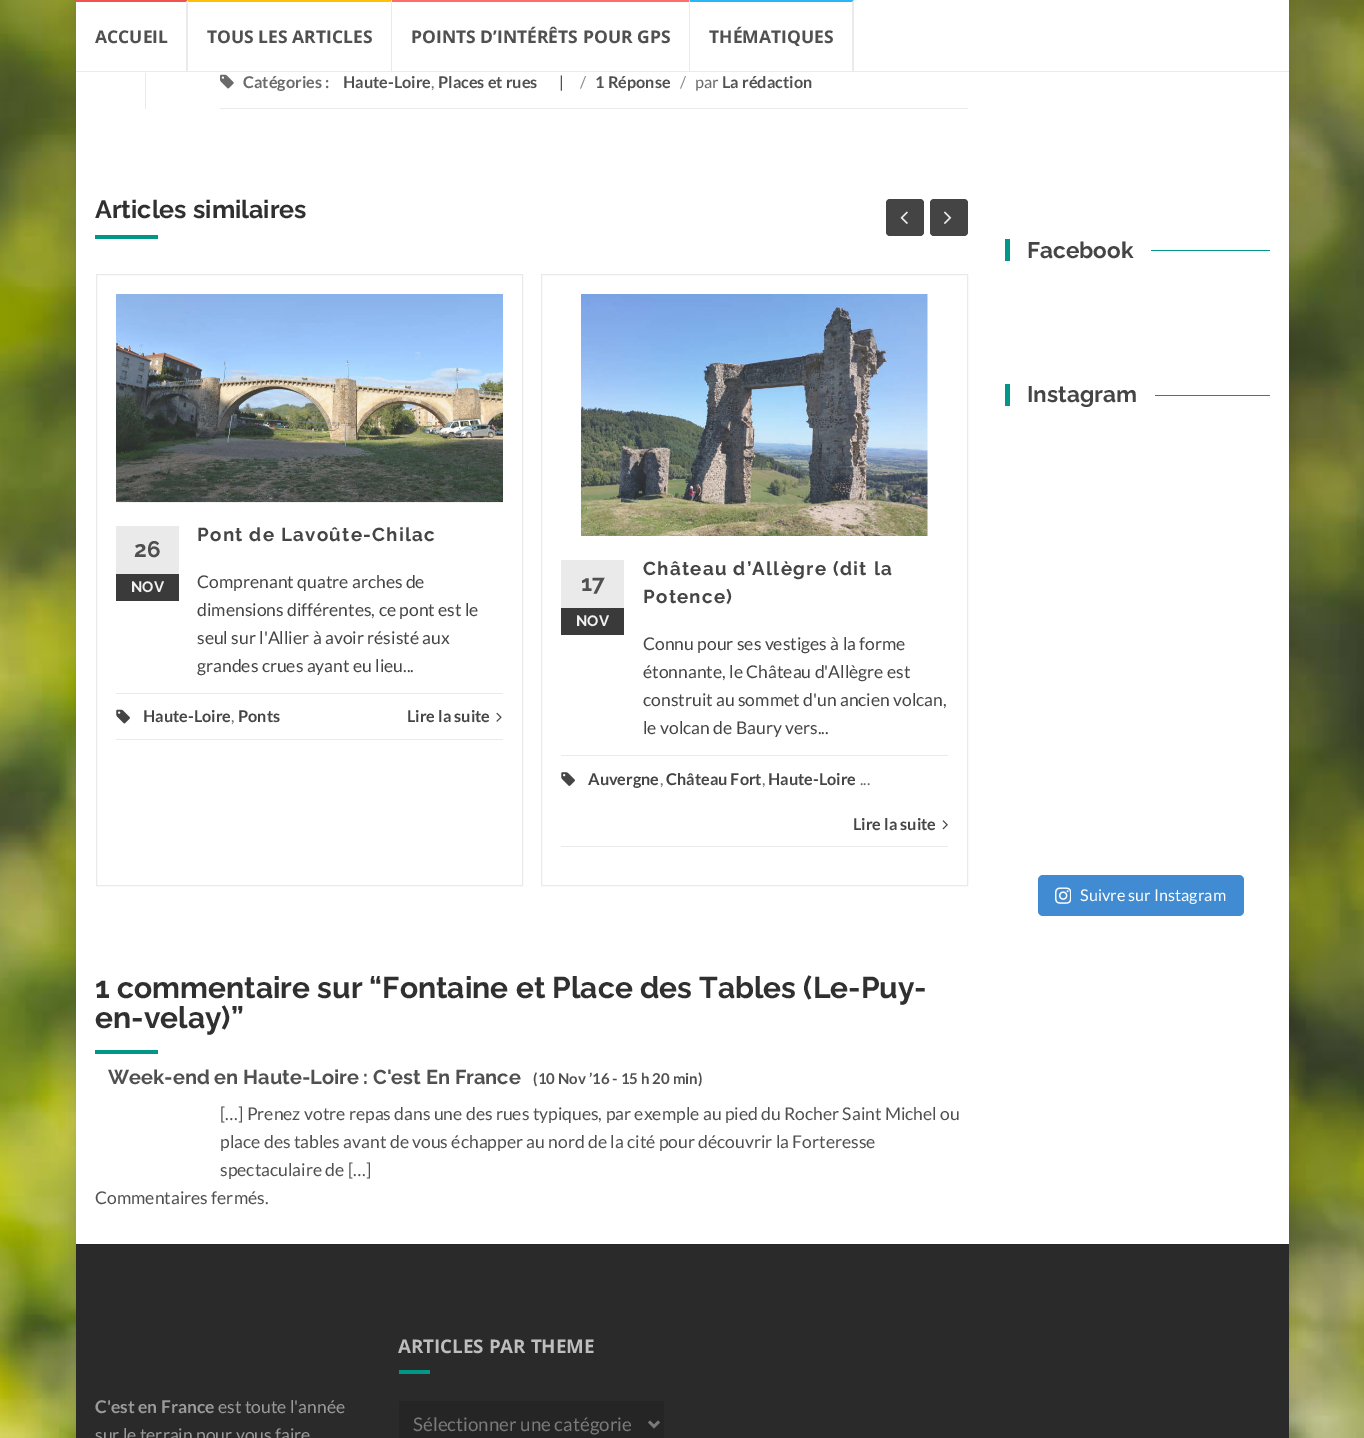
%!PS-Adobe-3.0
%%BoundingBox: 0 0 1364 1438
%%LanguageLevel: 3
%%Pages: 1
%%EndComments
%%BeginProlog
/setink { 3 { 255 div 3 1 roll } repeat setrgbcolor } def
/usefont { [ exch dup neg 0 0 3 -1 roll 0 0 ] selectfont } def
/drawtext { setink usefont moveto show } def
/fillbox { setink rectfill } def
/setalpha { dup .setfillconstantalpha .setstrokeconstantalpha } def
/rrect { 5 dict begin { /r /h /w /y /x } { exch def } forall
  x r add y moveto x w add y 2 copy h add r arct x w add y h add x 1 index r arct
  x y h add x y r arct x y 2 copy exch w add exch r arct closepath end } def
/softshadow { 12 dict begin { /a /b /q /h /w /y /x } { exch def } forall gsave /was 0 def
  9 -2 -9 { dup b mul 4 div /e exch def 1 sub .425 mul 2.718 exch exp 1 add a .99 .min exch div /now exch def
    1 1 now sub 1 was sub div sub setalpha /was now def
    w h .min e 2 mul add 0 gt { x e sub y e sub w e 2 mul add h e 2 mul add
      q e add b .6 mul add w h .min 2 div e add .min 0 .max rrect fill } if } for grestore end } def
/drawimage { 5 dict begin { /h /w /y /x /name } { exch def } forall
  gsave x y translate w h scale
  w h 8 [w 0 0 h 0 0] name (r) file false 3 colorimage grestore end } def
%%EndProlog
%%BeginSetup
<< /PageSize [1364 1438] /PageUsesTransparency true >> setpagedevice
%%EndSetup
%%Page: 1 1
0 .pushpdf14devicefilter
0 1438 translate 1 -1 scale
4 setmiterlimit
0 0 1364 1438 255 255 255 fillbox
(assets/img1.rgb) 0 0 1364 1438 drawimage
0 0 0 setink
76 -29 1213 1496 0 9.5 0.1 softshadow
76 0 1213 1244 255 255 255 fillbox
76 71 1213 1 234 234 234 fillbox
239 83 80 setink
76 0 moveto 188 0 lineto 186 2 lineto 76 2 lineto closepath fill
234 234 234 setink
188 0 moveto 188 71 lineto 186 71 lineto 186 2 lineto closepath fill
(ACCUEIL) 95 43 /OpenSans-Bold 17.5 80 80 80 drawtext
255 193 7 setink
188 0 moveto 392 0 lineto 391 2 lineto 188 2 lineto closepath fill
234 234 234 setink
392 0 moveto 392 71 lineto 391 71 lineto 391 2 lineto closepath fill
(TOUS LES ARTICLES) 207 43 /OpenSans-Bold 17.5 80 80 80 drawtext
255 107 107 setink
392 0 moveto 690 0 lineto 689 2 lineto 392 2 lineto closepath fill
234 234 234 setink
690 0 moveto 690 71 lineto 689 71 lineto 689 2 lineto closepath fill
(POINTS D’INTÉRÊTS POUR GPS) 411 43 /OpenSans-Bold 17.5 80 80 80 drawtext
41 182 246 setink
690 0 moveto 854 0 lineto 852 2 lineto 690 2 lineto closepath fill
234 234 234 setink
854 0 moveto 854 71 lineto 852 71 lineto 852 2 lineto closepath fill
(THÉMATIQUES) 709 43 /OpenSans-Bold 17.5 80 80 80 drawtext
145 73 1 36 234 234 234 fillbox
220 108 748 1 234 234 234 fillbox
(assets/img2.rgb) 220 74 14 15 drawimage
(Catégories :) 243 88 /Lato-Bold 16.25 106 106 106 drawtext
(Haute-Loire) 343 88 /Lato-Bold 16.25 80 80 80 drawtext
(,) 431 88 /Lato-Regular 16.25 106 106 106 drawtext
(Places et rues) 438 88 /Lato-Bold 16.25 80 80 80 drawtext
(|) 559 88 /Lato-Regular 16.25 80 80 80 drawtext
(/) 580 88 /Lato-Regular 16.25 136 136 136 drawtext
(1 Réponse) 595 88 /Lato-Bold 16.25 80 80 80 drawtext
(/) 680 88 /Lato-Regular 16.25 136 136 136 drawtext
(par) 695 88 /Lato-Regular 16.25 106 106 106 drawtext
(La rédaction) 722 88 /Lato-Bold 16.25 80 80 80 drawtext
(Articles similaires) 95 218 /Raleway-Bold 25 48 48 48 drawtext
95 235 63 4 0 150 136 fillbox
68 68 68 setink
886 199 38 37 4 rrect fill
(assets/img3.rgb) 900 211 8 13 drawimage
930 199 38 37 4 rrect fill
(assets/img4.rgb) 944 211 8 13 drawimage
234 234 234 setink
96.5 274.5 426 611 rectstroke
(assets/img5.rgb) 116 294 387 209 drawimage
0.16 setalpha
116 294 387 209 255 255 255 fillbox
/Raleway-Bold 18.75 usefont
1 setalpha
69 69 69 setink
197 541 moveto 1.25 0 (Pont de Lavoûte-Chilac) ashow
116 526 63 48 234 234 234 fillbox
(26) 134 557 /Raleway-Bold 22.5 80 80 80 drawtext
116 574 63 27 58 58 58 fillbox
(NOV) 131 592 /Raleway-Bold 15 241 241 241 drawtext
(Comprenant quatre arches de) 197 588 /Lato-Regular 17.5 69 69 69 drawtext
(dimensions différentes, ce pont est le) 197 616 /Lato-Regular 17.5 69 69 69 drawtext
(seul sur l'Allier à avoir résisté aux) 197 644 /Lato-Regular 17.5 69 69 69 drawtext
(grandes crues ayant eu lieu...) 197 672 /Lato-Regular 17.5 69 69 69 drawtext
116 693 387 1 234 234 234 fillbox
116 739 387 1 234 234 234 fillbox
(assets/img6.rgb) 116 709 14 15 drawimage
(Haute-Loire) 143 722 /Lato-Bold 16.25 69 69 69 drawtext
(,) 231 722 /Lato-Regular 16.25 106 106 106 drawtext
(Ponts) 238 722 /Lato-Bold 16.25 69 69 69 drawtext
(Lire la suite) 407 722 /Lato-Bold 16.25 69 69 69 drawtext
(assets/img7.rgb) 496 712 6 10 drawimage
234 234 234 setink
541.5 274.5 426 611 rectstroke
(assets/img8.rgb) 581 294 347 242 drawimage
0.16 setalpha
581 294 347 242 255 255 255 fillbox
1 setalpha
561 560 63 48 234 234 234 fillbox
(17) 581 591 /Raleway-Bold 22.5 80 80 80 drawtext
561 608 63 27 58 58 58 fillbox
(NOV) 576 626 /Raleway-Bold 15 241 241 241 drawtext
/Raleway-Bold 18.75 usefont
69 69 69 setink
643 575 moveto 1.25 0 (Château d’Allègre \(dit la) ashow
643 603 moveto 1.25 0 (Potence\)) ashow
(Connu pour ses vestiges à la forme) 643 650 /Lato-Regular 17.5 69 69 69 drawtext
(étonnante, le Château d'Allègre est) 643 678 /Lato-Regular 17.5 69 69 69 drawtext
(construit au sommet d'un ancien volcan,) 643 706 /Lato-Regular 17.5 69 69 69 drawtext
(le volcan de Baury vers...) 643 734 /Lato-Regular 17.5 69 69 69 drawtext
561 755 387 1 234 234 234 fillbox
561 846 387 1 234 234 234 fillbox
(assets/img9.rgb) 561 772 14 14 drawimage
(Auvergne) 588 785 /Lato-Bold 16.25 69 69 69 drawtext
(,) 660 785 /Lato-Regular 16.25 106 106 106 drawtext
(Château Fort) 666 785 /Lato-Bold 16.25 69 69 69 drawtext
(,) 762 785 /Lato-Regular 16.25 106 106 106 drawtext
(Haute-Loire) 768 785 /Lato-Bold 16.25 69 69 69 drawtext
(...) 860 785 /Lato-Regular 16.25 106 106 106 drawtext
(Lire la suite) 853 830 /Lato-Bold 16.25 69 69 69 drawtext
(assets/img10.rgb) 942 820 6 10 drawimage
(1 commentaire sur “Fontaine et Place des Tables \(Le-Puy-) 95 998 /Raleway-Bold 30 48 48 48 drawtext
(en-velay\)”) 95 1028 /Raleway-Bold 30 48 48 48 drawtext
95 1050 63 4 0 150 136 fillbox
(Week-end en Haute-Loire : C'est En France) 108 1084 /Raleway-Bold 20 80 80 80 drawtext
(\(10 Nov ’16 - 15 h 20 min\)) 533 1084 /Lato-Bold 15 80 80 80 drawtext
([…] Prenez votre repas dans une des rues typiques, par exemple au pied du Rocher Saint Michel ou) 220 1120 /Lato-Regular 17.5 80 80 80 drawtext
(place des tables avant de vous échapper au nord de la cité pour découvrir la Forteresse) 220 1148 /Lato-Regular 17.5 80 80 80 drawtext
(spectaculaire de […]) 220 1176 /Lato-Regular 17.5 80 80 80 drawtext
(Commentaires fermés.) 95 1204 /Lato-Regular 17.5 80 80 80 drawtext
1005 239 5 22 0 150 136 fillbox
(Facebook) 1027 258 /Raleway-Bold 22.5 69 69 69 drawtext
1151 250 119 1 0 150 136 fillbox
1005 384 5 22 0 150 136 fillbox
(Instagram) 1027 402 /Raleway-Bold 22.5 69 69 69 drawtext
1155 395 115 1 0 150 136 fillbox
64 139 209 setink
1038 875 206 41 5 rrect fill
(assets/img11.rgb) 1055 887 16 17 drawimage
(Suivre sur Instagram) 1080 901 /Lato-Regular 16.25 255 255 255 drawtext
76 1245 1213 193 42 42 42 fillbox
76 1244 1213 1 38 38 38 fillbox
(C'est en France) 95 1413 /Lato-Bold 17.5 154 154 154 drawtext
(est toute l'année) 218 1413 /Lato-Regular 17.5 154 154 154 drawtext
(sur le terrain pour vous faire) 95 1441 /Lato-Regular 17.5 154 154 154 drawtext
(ARTICLES PAR THEME) 398 1353 /OpenSans-Bold 18.75 190 190 190 drawtext
399 1370 31 4 0 150 136 fillbox
399 1401 265 37 37 37 37 fillbox
122 122 122 setink
2.5 setlinewidth
649 1421.5 moveto 654 1426.5 lineto 659 1421.5 lineto stroke
(Sélectionner une catégorie) 413 1431 /Lato-Regular 18.75 122 122 122 drawtext
.poppdf14devicefilter showpage
%%EOF
